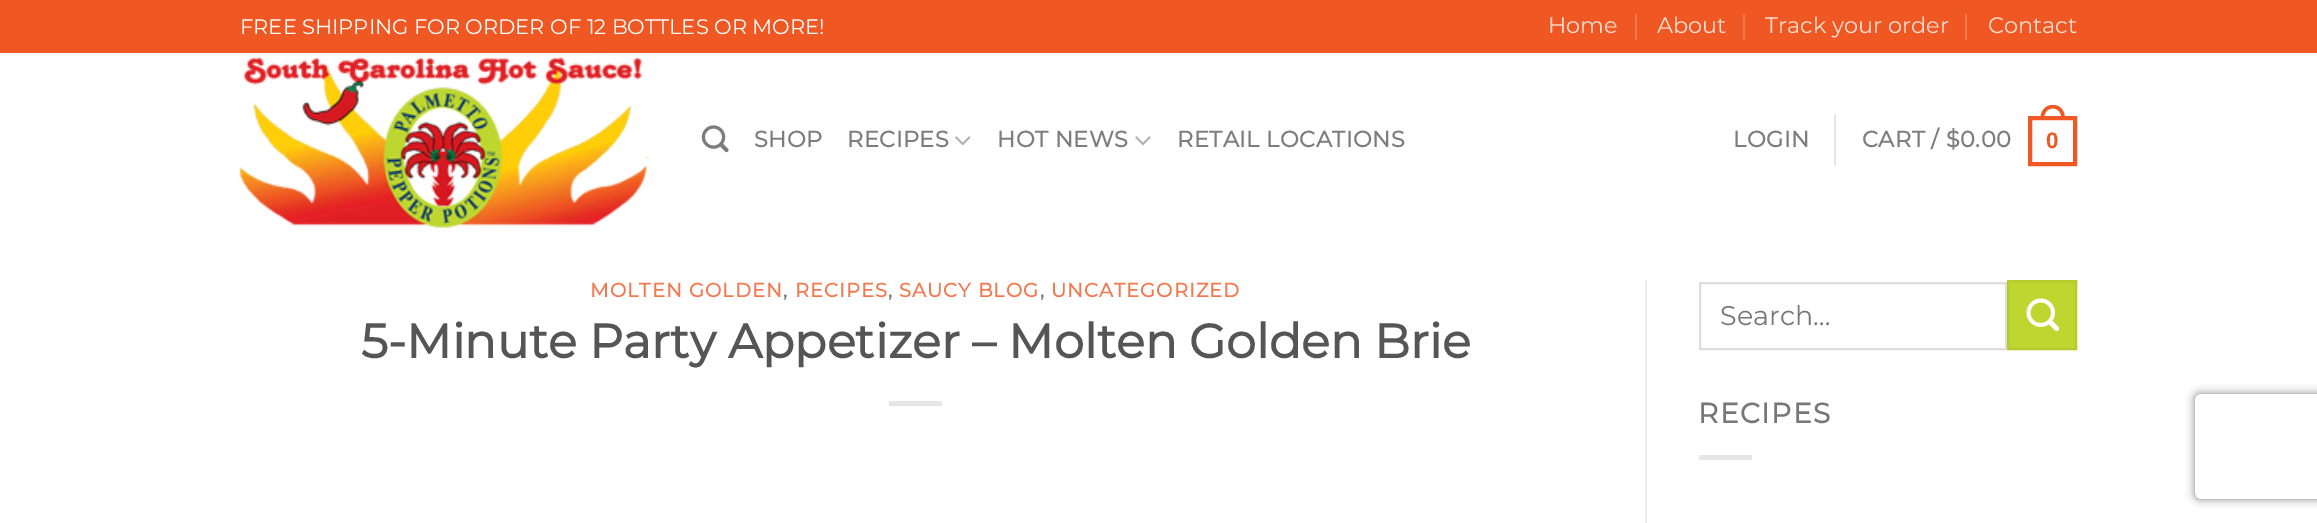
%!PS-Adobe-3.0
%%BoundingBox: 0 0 2317 523
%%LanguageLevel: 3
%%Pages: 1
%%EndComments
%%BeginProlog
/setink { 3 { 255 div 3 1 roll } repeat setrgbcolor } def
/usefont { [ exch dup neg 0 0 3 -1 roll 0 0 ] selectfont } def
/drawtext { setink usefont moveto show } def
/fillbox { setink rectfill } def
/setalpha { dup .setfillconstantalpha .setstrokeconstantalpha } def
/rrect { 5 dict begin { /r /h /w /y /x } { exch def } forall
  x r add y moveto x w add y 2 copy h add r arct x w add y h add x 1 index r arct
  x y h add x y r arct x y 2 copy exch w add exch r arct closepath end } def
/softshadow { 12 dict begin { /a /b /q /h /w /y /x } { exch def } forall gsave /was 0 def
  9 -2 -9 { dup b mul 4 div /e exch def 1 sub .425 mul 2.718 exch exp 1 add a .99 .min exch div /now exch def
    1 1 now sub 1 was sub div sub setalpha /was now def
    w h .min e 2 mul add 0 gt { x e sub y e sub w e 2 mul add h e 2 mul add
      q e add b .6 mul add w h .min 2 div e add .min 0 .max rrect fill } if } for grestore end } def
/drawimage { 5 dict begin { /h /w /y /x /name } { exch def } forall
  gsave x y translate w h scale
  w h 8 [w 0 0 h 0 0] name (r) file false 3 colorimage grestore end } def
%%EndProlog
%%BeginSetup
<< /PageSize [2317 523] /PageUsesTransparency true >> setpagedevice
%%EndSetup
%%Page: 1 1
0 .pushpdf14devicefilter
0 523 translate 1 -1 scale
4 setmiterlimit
0 0 2317 523 255 255 255 fillbox
0 0 2317 53 239 88 35 fillbox
(FREE SHIPPING FOR ORDER OF 12 BOTTLES OR MORE!) 240 34 /Montserrat-Thin 21 255 255 255 drawtext
(Home) 1548 33 /Montserrat-Thin 22.4 252 222 211 drawtext
1635 14 2 26 242 121 79 fillbox
(About) 1657 33 /Montserrat-Thin 22.4 252 222 211 drawtext
1743 14 2 26 242 121 79 fillbox
(Track your order) 1765 33 /Montserrat-Thin 22.4 252 222 211 drawtext
1965 14 2 26 242 121 79 fillbox
(Contact) 1988 33 /Montserrat-Thin 22.4 252 222 211 drawtext
(assets/img1.rgb) 239 54 411 174 drawimage
(assets/img2.rgb) 701 125 28 28 drawimage
/Montserrat-Bold 22.4 usefont
125 125 125 setink
754 147 moveto 0.5 0 (SHOP) ashow
847 147 moveto 0.5 0 (RECIPES) ashow
(assets/img3.rgb) 955 136 16 10 drawimage
997 147 moveto 0.5 0 (HOT NEWS) ashow
(assets/img4.rgb) 1135 136 16 10 drawimage
1177 147 moveto 0.5 0 (RETAIL LOCATIONS) ashow
1733 147 moveto 0.5 0 (LOGIN) ashow
1834 114 2 52 230 230 230 fillbox
125 125 125 setink
1862 147 moveto 0.5 0 (CART / $0.00) ashow
239 88 35 setink
4 setlinewidth
2030 118 45 46 rectstroke
2053 105 moveto 2061 105 2065 111.5 2065 119 curveto 2040.5 119 lineto 2040.5 111.5 2044.5 105 2053 105 curveto closepath 2053 108.5 moveto 2059 108.5 2061.5 113.5 2061.5 119 curveto 2044 119 lineto 2044 113.5 2046.5 108.5 2053 108.5 curveto closepath eofill
/LiberationSans-Bold 22.4 usefont
2046 148 moveto 0.5 0 (0) ashow
/Montserrat-Bold 19.5 usefont
242 121 79 setink
590 297 moveto 1 0 (MOLTEN GOLDEN) ashow
119 119 119 setink
783 297 moveto 1 0 (,) ashow
242 121 79 setink
795 297 moveto 1 0 (RECIPES) ashow
119 119 119 setink
888 297 moveto 1 0 (,) ashow
242 121 79 setink
899 297 moveto 1 0 (SAUCY BLOG) ashow
119 119 119 setink
1040 297 moveto 1 0 (,) ashow
242 121 79 setink
1051 297 moveto 1 0 (UNCATEGORIZED) ashow
(5-Minute Party Appetizer – Molten Golden Brie) 361 358 /Montserrat-Bold 47.6 85 85 85 drawtext
889 401 53 5 230 230 230 fillbox
1645 280 2 243 236 236 236 fillbox
221 221 221 setink
2 setlinewidth
1700 283 306 66 rectstroke
(Search…) 1720 325 /Montserrat-Thin 27 119 119 119 drawtext
189 214 48 setink
2008 281 moveto 2076 281 lineto 2076 349 lineto 2008 349 lineto closepath gsave fill grestore
180 203 46 setink
stroke
(assets/img5.rgb) 2026 298 34 33 drawimage
/Montserrat-Bold 28 usefont
119 119 119 setink
1698 423 moveto 1.5 0 (RECIPES) ashow
1699 455 53 5 230 230 230 fillbox
gsave
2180 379 moveto 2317 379 lineto 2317 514 lineto 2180 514 lineto closepath 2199 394 moveto 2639 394 lineto 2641 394 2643 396 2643 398 curveto 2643 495 lineto 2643 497 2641 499 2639 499 curveto 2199 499 lineto 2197 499 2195 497 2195 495 curveto 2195 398 lineto 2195 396 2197 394 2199 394 curveto closepath eoclip newpath
128 128 128 setink
2195 394 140 105 4 4.5 1 softshadow
grestore
.poppdf14devicefilter showpage
%%EOF
